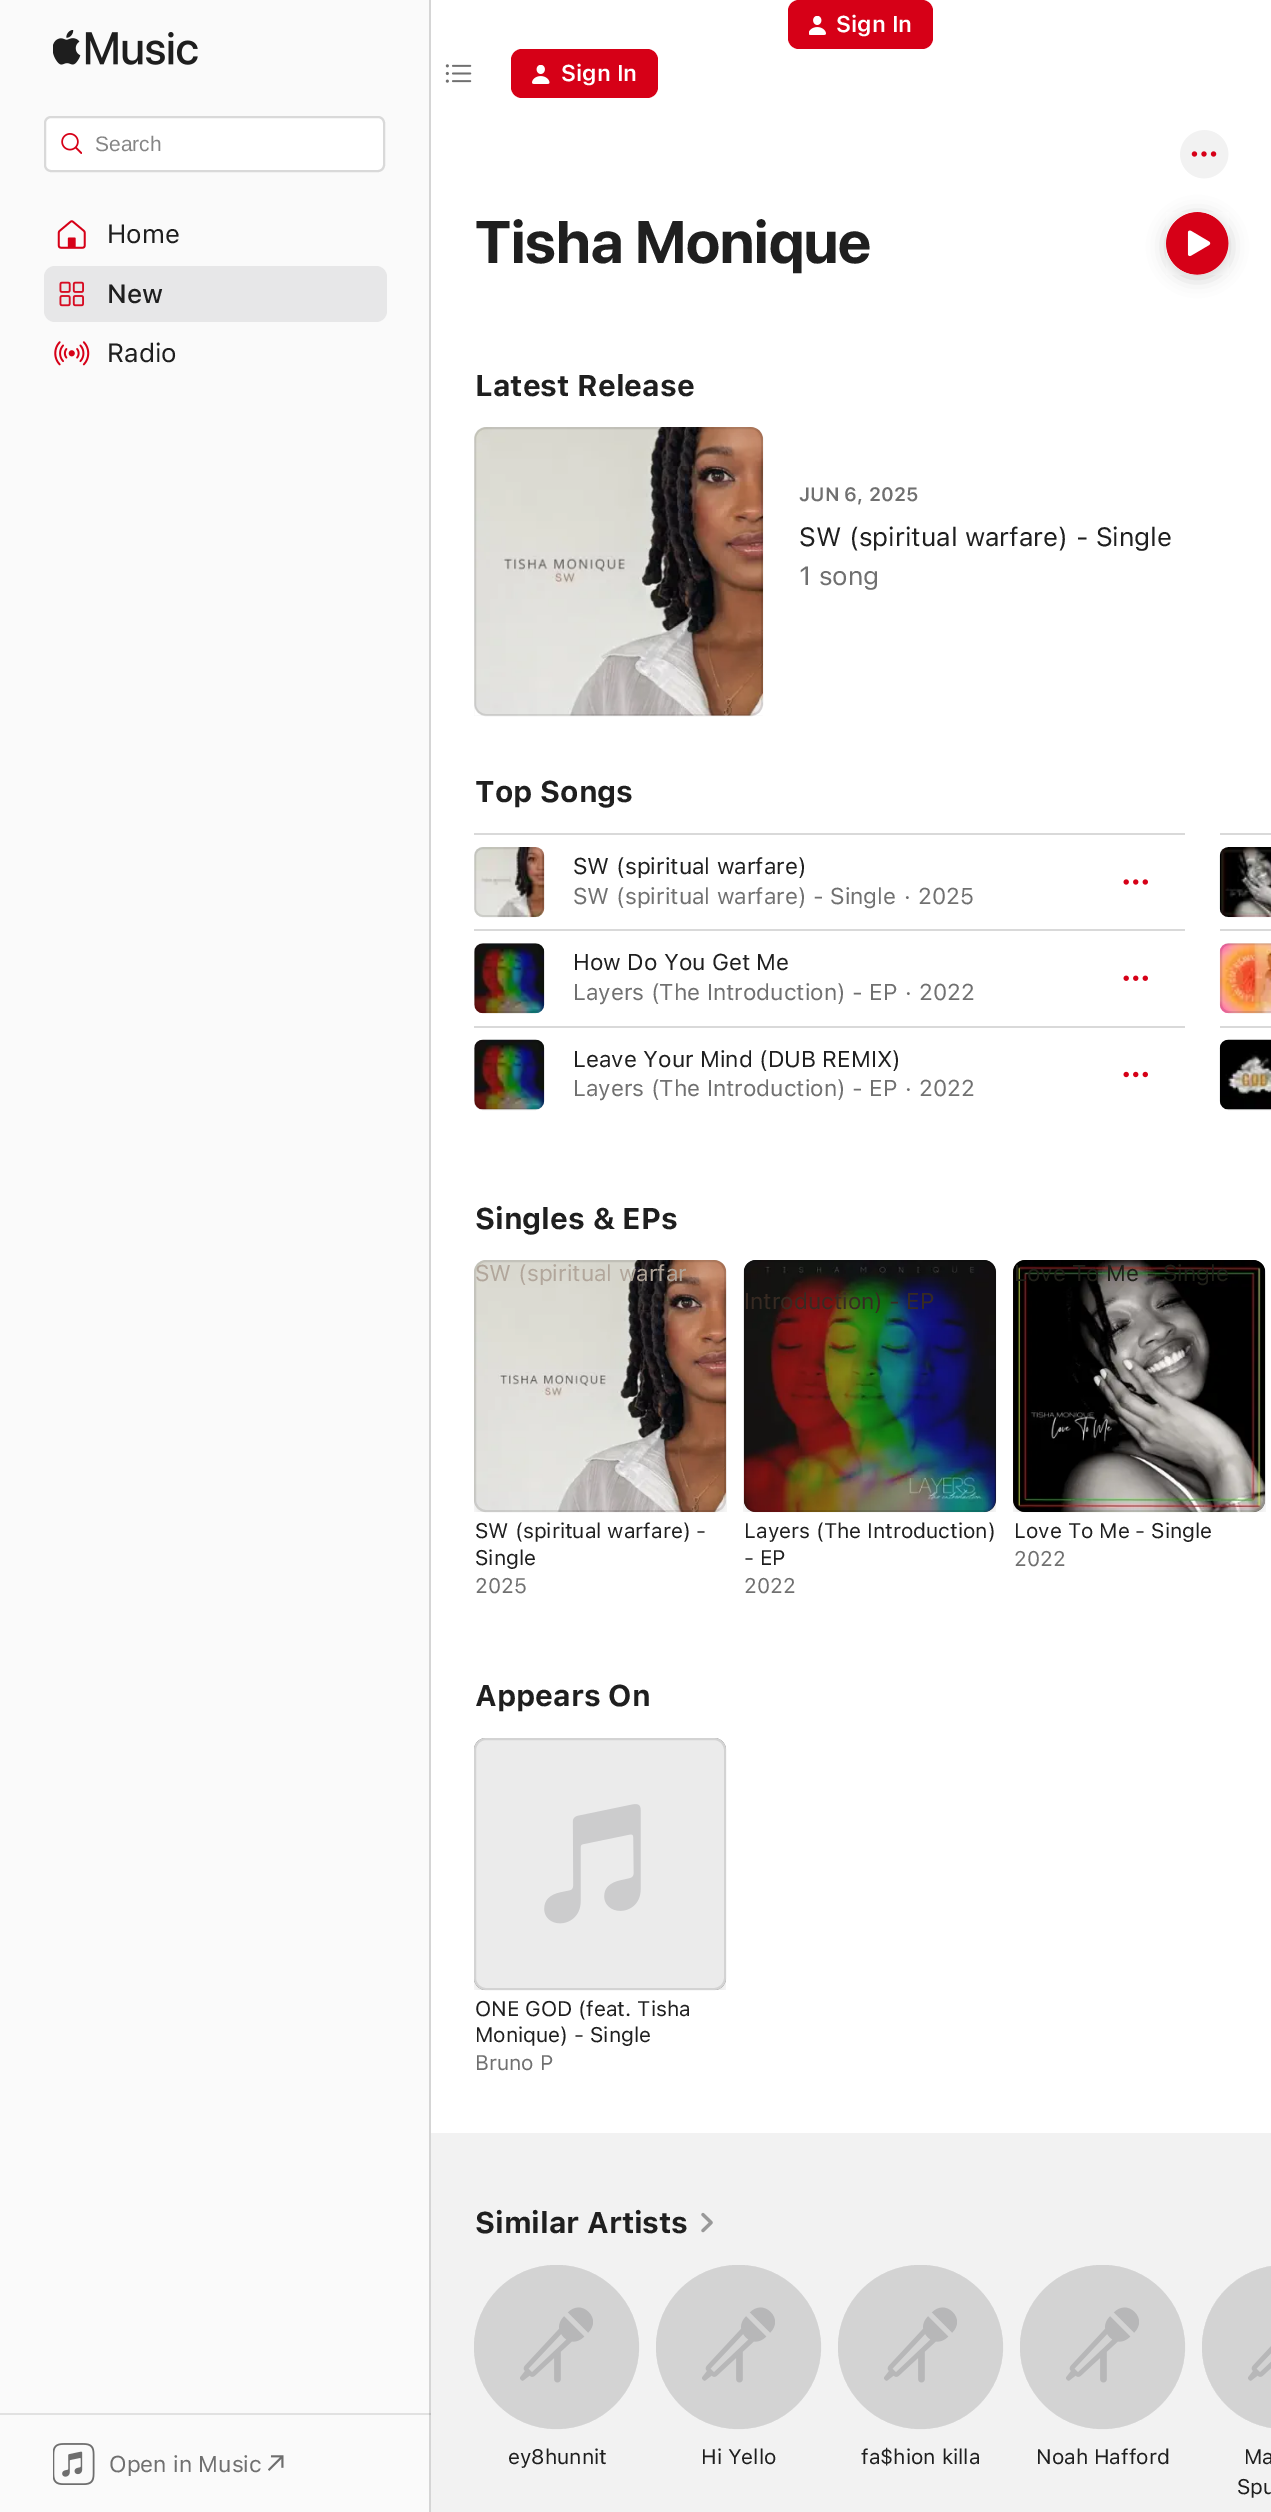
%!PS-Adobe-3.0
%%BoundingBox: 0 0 1271 2512
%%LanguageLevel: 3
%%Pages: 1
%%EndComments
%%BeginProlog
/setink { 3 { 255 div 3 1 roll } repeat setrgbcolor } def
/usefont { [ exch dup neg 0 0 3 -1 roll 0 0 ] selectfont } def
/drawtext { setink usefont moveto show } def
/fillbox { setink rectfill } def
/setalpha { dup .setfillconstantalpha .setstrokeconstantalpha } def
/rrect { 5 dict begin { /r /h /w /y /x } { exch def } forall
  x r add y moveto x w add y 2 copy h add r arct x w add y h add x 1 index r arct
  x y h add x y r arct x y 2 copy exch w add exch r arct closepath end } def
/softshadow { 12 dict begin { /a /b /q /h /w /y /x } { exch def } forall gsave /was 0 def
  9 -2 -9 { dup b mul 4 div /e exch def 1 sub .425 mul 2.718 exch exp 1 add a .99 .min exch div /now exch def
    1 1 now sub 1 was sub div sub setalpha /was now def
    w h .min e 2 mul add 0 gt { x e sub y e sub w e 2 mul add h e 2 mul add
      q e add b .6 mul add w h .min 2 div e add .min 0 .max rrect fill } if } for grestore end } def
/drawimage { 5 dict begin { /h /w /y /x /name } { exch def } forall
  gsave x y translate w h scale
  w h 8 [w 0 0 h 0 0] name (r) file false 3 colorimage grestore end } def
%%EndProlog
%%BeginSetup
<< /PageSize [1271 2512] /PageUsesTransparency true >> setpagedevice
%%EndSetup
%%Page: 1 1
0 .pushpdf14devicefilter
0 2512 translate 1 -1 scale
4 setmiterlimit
0 0 1271 2512 255 255 255 fillbox
214 0 23 setink
788 0 145 49 11 rrect fill
(assets/img1.rgb) 809 16 17 19 drawimage
(Sign In) 836 32 /SF-SemiBold 22.75 255 255 255 drawtext
(assets/img2.rgb) 445 64 27 19 drawimage
214 0 23 setink
511 49 147 49 11 rrect fill
(assets/img3.rgb) 532 65 18 19 drawimage
(Sign In) 561 81 /SF-SemiBold 22.75 255 255 255 drawtext
0 0 429 2512 250 250 250 fillbox
0 2413 431 2 225 225 225 fillbox
429 0 2 2512 213 213 213 fillbox
429 2413 2 2 192 192 192 fillbox
(assets/img4.rgb) 53 30 145 35 drawimage
255 255 255 setink
45 117 339 54 6 rrect gsave fill grestore
217 217 217 setink
2 setlinewidth
stroke
(assets/img5.rgb) 61 133 21 21 drawimage
(Search) 95 151 /LiberationSans-Regular 21 133 133 133 drawtext
(assets/img6.rgb) 57 220 29 29 drawimage
(Home) 107 243 /SF-Regular 26.25 31 31 31 drawtext
231 231 232 setink
44 266 343 56 11 rrect fill
(assets/img7.rgb) 59 281 25 26 drawimage
(New) 107 303 /SF-Medium 26.25 31 31 31 drawtext
(assets/img8.rgb) 54 341 36 25 drawimage
(Radio) 107 362 /SF-Regular 26.25 31 31 31 drawtext
(assets/img9.rgb) 53 2443 42 42 drawimage
(Open in Music) 109 2472 /SF-Regular 22.75 112 112 112 drawtext
(assets/img10.rgb) 268 2455 16 16 drawimage
(assets/img11.rgb) 1180 130 49 49 drawimage
(Tisha Monique) 475 263 /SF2-Bold 59.5 31 31 31 drawtext
0 0 0 setink
1166 215 63 63 31.5 9 0.2 softshadow
(assets/img12.rgb) 1166 212 63 63 drawimage
(Latest Release) 475 396 /SF-Bold 29.75 31 31 31 drawtext
(assets/img13.rgb) 474 427 289 289 drawimage
0.1 setalpha
0 0 0 setink
475 428 287 287 11 rrect stroke
1 setalpha
(JUN 6, 2025) 799 501 /SF-SemiBold 19.25 112 112 112 drawtext
(SW \(spiritual warfare\) - Single) 799 546 /SF-Regular 26.25 31 31 31 drawtext
(1 song) 799 585 /SF-Regular 26.25 112 112 112 drawtext
(Top Songs) 475 802 /SF-Bold 29.75 31 31 31 drawtext
474 833 711 2 217 217 217 fillbox
(assets/img14.rgb) 474 847 71 70 drawimage
0.1 setalpha
0 0 0 setink
475 848 68 68 8 rrect stroke
1 setalpha
(SW \(spiritual warfare\)) 573 874 /SF-Regular 22.75 31 31 31 drawtext
(SW \(spiritual warfare\) - Single · 2025) 573 904 /SF-Regular 22.75 112 112 112 drawtext
(assets/img15.rgb) 1123 879 25 6 drawimage
1220 833 51 2 217 217 217 fillbox
(assets/img16.rgb) 1219 847 52 70 drawimage
0.1 setalpha
0 0 0 setink
1221 848 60 68 8 rrect stroke
1 setalpha
474 929 711 2 217 217 217 fillbox
(assets/img17.rgb) 474 943 71 71 drawimage
0.1 setalpha
0 0 0 setink
475 944 68 68 8 rrect stroke
1 setalpha
(How Do You Get Me) 573 970 /SF-Regular 22.75 31 31 31 drawtext
(Layers \(The Introduction\) - EP · 2022) 573 1000 /SF-Regular 22.75 112 112 112 drawtext
(assets/img18.rgb) 1123 975 25 6 drawimage
1220 929 51 2 217 217 217 fillbox
(assets/img19.rgb) 1219 943 52 71 drawimage
0.1 setalpha
0 0 0 setink
1221 944 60 68 8 rrect stroke
1 setalpha
474 1026 711 2 217 217 217 fillbox
(assets/img20.rgb) 474 1039 71 71 drawimage
0.1 setalpha
0 0 0 setink
475 1041 68 68 8 rrect stroke
1 setalpha
(Leave Your Mind \(DUB REMIX\)) 573 1067 /SF-Regular 22.75 31 31 31 drawtext
(Layers \(The Introduction\) - EP · 2022) 573 1096 /SF-Regular 22.75 112 112 112 drawtext
(assets/img21.rgb) 1123 1071 25 7 drawimage
1220 1026 51 2 217 217 217 fillbox
(assets/img22.rgb) 1219 1039 52 71 drawimage
0.1 setalpha
0 0 0 setink
1221 1041 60 68 8 rrect stroke
1 setalpha
(Singles & EPs) 475 1229 /SF-Bold 29.75 31 31 31 drawtext
216 216 208 setink
474 1260 252 252 12 rrect fill
(assets/img23.rgb) 474 1260 253 252 drawimage
0.1 setalpha
0 0 0 setink
475 1261 250 250 11 rrect stroke
1 setalpha
(SW \(spiritual warfar) 475 1281 /SF-Regular 22.75 177 166 155 drawtext
(SW \(spiritual warfare\) -) 475 1538 /SF-Regular 21 31 31 31 drawtext
(Single) 475 1565 /SF-Regular 21 31 31 31 drawtext
(2025) 475 1593 /SF-Regular 21 112 112 112 drawtext
19 18 16 setink
744 1260 252 252 12 rrect fill
(assets/img24.rgb) 743 1260 253 252 drawimage
0.1 setalpha
0 0 0 setink
745 1261 250 250 11 rrect stroke
1 setalpha
(Introduction\) - EP) 744 1309 /SF-Regular 22.75 55 42 34 drawtext
(Layers \(The Introduction\)) 744 1538 /SF-Regular 21 31 31 31 drawtext
(- EP) 744 1565 /SF-Regular 21 31 31 31 drawtext
(2022) 744 1593 /SF-Regular 21 112 112 112 drawtext
30 19 7 setink
1013 1260 252 252 12 rrect fill
(assets/img25.rgb) 1013 1260 253 252 drawimage
0.1 setalpha
0 0 0 setink
1014 1261 250 250 11 rrect stroke
1 setalpha
(Love To Me - Single) 1014 1281 /SF-Regular 22.75 32 32 25 drawtext
(Love To Me - Single) 1014 1538 /SF-Regular 21 31 31 31 drawtext
(2022) 1014 1566 /SF-Regular 21 112 112 112 drawtext
(Appears On) 475 1706 /SF-Bold 29.75 31 31 31 drawtext
(assets/img26.rgb) 474 1738 252 252 drawimage
0.1 setalpha
0 0 0 setink
475 1739 250 250 11 rrect stroke
1 setalpha
(ONE GOD \(feat. Tisha) 475 2016 /SF-Regular 21 31 31 31 drawtext
(Monique\) - Single) 475 2042 /SF-Regular 21 31 31 31 drawtext
(Bruno P) 475 2070 /SF-Regular 21 112 112 112 drawtext
431 2133 840 379 242 242 242 fillbox
(Similar Artists) 475 2233 /SF-Bold 29.75 31 31 31 drawtext
(assets/img27.rgb) 701 2212 12 21 drawimage
0.1 setalpha
128 128 128 setink
475 2266 163 162 81 rrect stroke
1 setalpha
235 235 235 setink
474 2265 165 164 82 rrect fill
(assets/img28.rgb) 520 2307 73 76 drawimage
0.1 setalpha
0 0 0 setink
556 2265 moveto 557 2265 lineto 602 2265 639 2302 639 2347 curveto 639 2392 602 2429 557 2429 curveto 556 2429 lineto 511 2429 474 2392 474 2347 curveto 474 2302 511 2265 556 2265 curveto closepath fill
1 setalpha
(ey8hunnit) 508 2464 /SF-Regular 21 31 31 31 drawtext
0.1 setalpha
128 128 128 setink
657 2266 163 162 81 rrect stroke
1 setalpha
235 235 235 setink
656 2265 165 164 82 rrect fill
(assets/img28.rgb) 702 2307 73 76 drawimage
0.1 setalpha
0 0 0 setink
738 2265 moveto 739 2265 lineto 784 2265 821 2302 821 2347 curveto 821 2392 784 2429 739 2429 curveto 738 2429 lineto 693 2429 656 2392 656 2347 curveto 656 2302 693 2265 738 2265 curveto closepath fill
1 setalpha
(Hi Yello) 701 2464 /SF-Regular 21 31 31 31 drawtext
0.1 setalpha
128 128 128 setink
839 2266 163 162 81 rrect stroke
1 setalpha
235 235 235 setink
838 2265 165 164 82 rrect fill
(assets/img28.rgb) 884 2307 73 76 drawimage
0.1 setalpha
0 0 0 setink
920 2265 moveto 921 2265 lineto 966 2265 1003 2302 1003 2347 curveto 1003 2392 966 2429 921 2429 curveto 920 2429 lineto 875 2429 838 2392 838 2347 curveto 838 2302 875 2265 920 2265 curveto closepath fill
1 setalpha
(fa$hion killa) 861 2464 /SF-Regular 21 31 31 31 drawtext
0.1 setalpha
128 128 128 setink
1021 2266 163 162 81 rrect stroke
1 setalpha
235 235 235 setink
1020 2265 165 164 82 rrect fill
(assets/img28.rgb) 1066 2307 73 76 drawimage
0.1 setalpha
0 0 0 setink
1102 2265 moveto 1103 2265 lineto 1148 2265 1185 2302 1185 2347 curveto 1185 2392 1148 2429 1103 2429 curveto 1102 2429 lineto 1057 2429 1020 2392 1020 2347 curveto 1020 2302 1057 2265 1102 2265 curveto closepath fill
1 setalpha
(Noah Hafford) 1036 2464 /SF-Regular 21 31 31 31 drawtext
0.1 setalpha
128 128 128 setink
1203 2266 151 162 81 rrect stroke
gsave
1202 2265 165 164 82 rrect clip newpath
1202 2265 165 164 82 rrect clip newpath
1 setalpha
1202 2266 69 162 235 235 235 fillbox
grestore
1 setalpha
(assets/img29.rgb) 1248 2346 23 35 drawimage
0.1 setalpha
0 0 0 setink
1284 2265 moveto 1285 2265 lineto 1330 2265 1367 2302 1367 2347 curveto 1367 2392 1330 2429 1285 2429 curveto 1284 2429 lineto 1239 2429 1202 2392 1202 2347 curveto 1202 2302 1239 2265 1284 2265 curveto closepath fill
1 setalpha
(Ma) 1244 2464 /SF-Regular 21 31 31 31 drawtext
(Spu) 1237 2494 /SF-Regular 21 31 31 31 drawtext
.poppdf14devicefilter showpage
%%EOF
